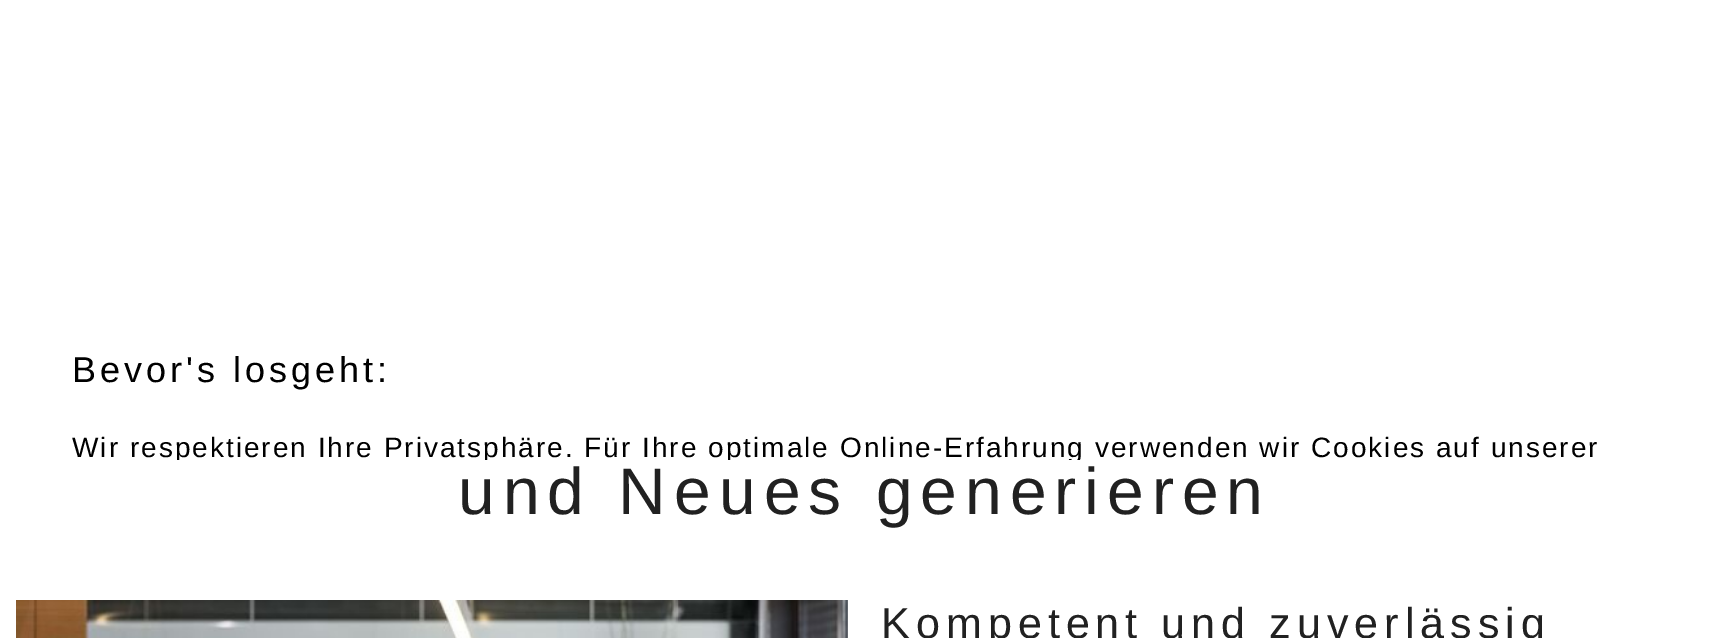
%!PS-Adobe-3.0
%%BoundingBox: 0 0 1729 638
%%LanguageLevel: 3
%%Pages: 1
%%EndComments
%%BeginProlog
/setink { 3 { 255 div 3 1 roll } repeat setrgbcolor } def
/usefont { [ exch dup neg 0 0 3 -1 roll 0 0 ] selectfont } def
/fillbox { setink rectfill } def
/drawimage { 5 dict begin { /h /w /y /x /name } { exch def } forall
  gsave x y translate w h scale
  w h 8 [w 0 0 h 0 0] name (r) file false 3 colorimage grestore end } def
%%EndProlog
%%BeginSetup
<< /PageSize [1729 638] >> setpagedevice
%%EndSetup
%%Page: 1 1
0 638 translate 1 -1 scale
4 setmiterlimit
0 0 1729 638 255 255 255 fillbox
/LiberationSans-Regular 36 usefont
0 0 0 setink
72 382 moveto 4 0 (Bevor's losgeht:) ashow
gsave
24 300 1650 160 rectclip
/LiberationSans-Regular 28 usefont
72 457 moveto 2 0 (Wir respektieren Ihre Privatsphäre. Für Ihre optimale Online-Erfahrung verwenden wir Cookies auf unserer) ashow
grestore
/LiberationSans-Regular 66 usefont
33 33 33 setink
458 514 moveto 8 0 (und Neues generieren) ashow
(assets/img1.rgb) 16 600 832 38 drawimage
/LiberationSans-Regular 43.1 usefont
881 638 moveto 6 0 (Kompetent und zuverlässig) ashow
showpage
%%EOF
